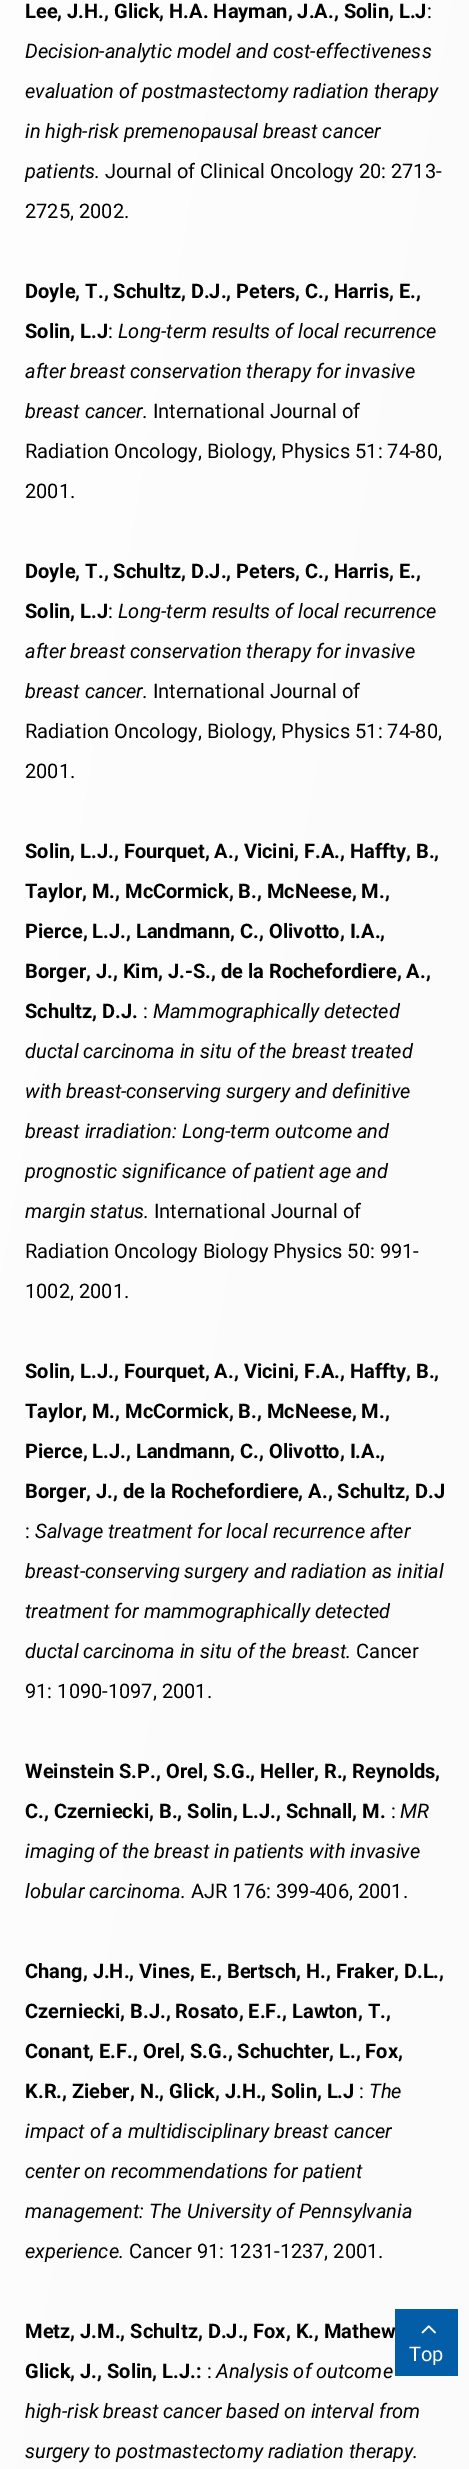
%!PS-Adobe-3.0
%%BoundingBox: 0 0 469 2469
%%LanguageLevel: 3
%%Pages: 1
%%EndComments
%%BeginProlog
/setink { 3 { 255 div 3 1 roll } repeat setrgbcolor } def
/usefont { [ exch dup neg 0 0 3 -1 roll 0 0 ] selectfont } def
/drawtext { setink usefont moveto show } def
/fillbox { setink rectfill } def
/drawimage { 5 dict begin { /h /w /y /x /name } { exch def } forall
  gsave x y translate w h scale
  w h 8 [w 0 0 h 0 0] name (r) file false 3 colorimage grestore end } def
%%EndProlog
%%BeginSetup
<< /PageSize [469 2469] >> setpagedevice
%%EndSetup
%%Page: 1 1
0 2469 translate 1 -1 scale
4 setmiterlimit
0 0 469 2469 255 255 255 fillbox
gsave 0 0 moveto 469 0 lineto 469 2469 lineto 0 2469 lineto closepath clip newpath
<< /ShadingType 2 /ColorSpace /DeviceRGB /Coords [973 1043 -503 783] /Extend [true true] /Function << /FunctionType 3 /Domain [0 1] /Functions [<< /FunctionType 2 /Domain [0 1] /C0 [0.984 0.984 0.984] /C1 [0.984 0.984 0.984] /N 1 >> << /FunctionType 2 /Domain [0 1] /C0 [0.984 0.984 0.984] /C1 [1 1 1] /N 1 >>] /Bounds [0.3] /Encode [0 1 0 1] >> >> shfill grestore
(Lee, J.H., Glick, H.A. Hayman, J.A., Solin, L.J) 25 18 /Roboto-Bold 20 0 0 0 drawtext
(:) 427 18 /Roboto-Regular 20 0 0 0 drawtext
(Decision-analytic model and cost-effectiveness) 25 58 /Roboto-Italic 20 0 0 0 drawtext
(evaluation of postmastectomy radiation therapy) 25 98 /Roboto-Italic 20 0 0 0 drawtext
(in high-risk premenopausal breast cancer) 25 138 /Roboto-Italic 20 0 0 0 drawtext
(patients.) 25 178 /Roboto-Italic 20 0 0 0 drawtext
(Journal of Clinical Oncology 20: 2713-) 105 178 /Roboto-Regular 20 0 0 0 drawtext
(2725, 2002.) 25 218 /Roboto-Regular 20 0 0 0 drawtext
(Doyle, T., Schultz, D.J., Peters, C., Harris, E.,) 25 298 /Roboto-Bold 20 0 0 0 drawtext
(Solin, L.J) 25 338 /Roboto-Bold 20 0 0 0 drawtext
(:) 108 338 /Roboto-Regular 20 0 0 0 drawtext
(Long-term results of local recurrence) 118 338 /Roboto-Italic 20 0 0 0 drawtext
(after breast conservation therapy for invasive) 25 378 /Roboto-Italic 20 0 0 0 drawtext
(breast cancer.) 25 418 /Roboto-Italic 20 0 0 0 drawtext
(International Journal of) 153 418 /Roboto-Regular 20 0 0 0 drawtext
(Radiation Oncology, Biology, Physics 51: 74-80,) 25 458 /Roboto-Regular 20 0 0 0 drawtext
(2001.) 25 498 /Roboto-Regular 20 0 0 0 drawtext
(Doyle, T., Schultz, D.J., Peters, C., Harris, E.,) 25 578 /Roboto-Bold 20 0 0 0 drawtext
(Solin, L.J) 25 618 /Roboto-Bold 20 0 0 0 drawtext
(:) 108 618 /Roboto-Regular 20 0 0 0 drawtext
(Long-term results of local recurrence) 118 618 /Roboto-Italic 20 0 0 0 drawtext
(after breast conservation therapy for invasive) 25 658 /Roboto-Italic 20 0 0 0 drawtext
(breast cancer.) 25 698 /Roboto-Italic 20 0 0 0 drawtext
(International Journal of) 153 698 /Roboto-Regular 20 0 0 0 drawtext
(Radiation Oncology, Biology, Physics 51: 74-80,) 25 738 /Roboto-Regular 20 0 0 0 drawtext
(2001.) 25 778 /Roboto-Regular 20 0 0 0 drawtext
(Solin, L.J., Fourquet, A., Vicini, F.A., Haffty, B.,) 25 858 /Roboto-Bold 20 0 0 0 drawtext
(Taylor, M., McCormick, B., McNeese, M.,) 25 898 /Roboto-Bold 20 0 0 0 drawtext
(Pierce, L.J., Landmann, C., Olivotto, I.A.,) 25 938 /Roboto-Bold 20 0 0 0 drawtext
(Borger, J., Kim, J.-S., de la Rochefordiere, A.,) 25 978 /Roboto-Bold 20 0 0 0 drawtext
(Schultz, D.J.) 25 1018 /Roboto-Bold 20 0 0 0 drawtext
(:) 143 1018 /Roboto-Regular 20 0 0 0 drawtext
(Mammographically detected) 153 1018 /Roboto-Italic 20 0 0 0 drawtext
(ductal carcinoma in situ of the breast treated) 25 1058 /Roboto-Italic 20 0 0 0 drawtext
(with breast-conserving surgery and definitive) 25 1098 /Roboto-Italic 20 0 0 0 drawtext
(breast irradiation: Long-term outcome and) 25 1138 /Roboto-Italic 20 0 0 0 drawtext
(prognostic significance of patient age and) 25 1178 /Roboto-Italic 20 0 0 0 drawtext
(margin status.) 25 1218 /Roboto-Italic 20 0 0 0 drawtext
(International Journal of) 154 1218 /Roboto-Regular 20 0 0 0 drawtext
(Radiation Oncology Biology Physics 50: 991-) 25 1258 /Roboto-Regular 20 0 0 0 drawtext
(1002, 2001.) 25 1298 /Roboto-Regular 20 0 0 0 drawtext
(Solin, L.J., Fourquet, A., Vicini, F.A., Haffty, B.,) 25 1378 /Roboto-Bold 20 0 0 0 drawtext
(Taylor, M., McCormick, B., McNeese, M.,) 25 1418 /Roboto-Bold 20 0 0 0 drawtext
(Pierce, L.J., Landmann, C., Olivotto, I.A.,) 25 1458 /Roboto-Bold 20 0 0 0 drawtext
(Borger, J., de la Rochefordiere, A., Schultz, D.J) 25 1498 /Roboto-Bold 20 0 0 0 drawtext
(:) 25 1538 /Roboto-Regular 20 0 0 0 drawtext
(Salvage treatment for local recurrence after) 35 1538 /Roboto-Italic 20 0 0 0 drawtext
(breast-conserving surgery and radiation as initial) 25 1578 /Roboto-Italic 20 0 0 0 drawtext
(treatment for mammographically detected) 25 1618 /Roboto-Italic 20 0 0 0 drawtext
(ductal carcinoma in situ of the breast.) 25 1658 /Roboto-Italic 20 0 0 0 drawtext
(Cancer) 356 1658 /Roboto-Regular 20 0 0 0 drawtext
(91: 1090-1097, 2001.) 25 1698 /Roboto-Regular 20 0 0 0 drawtext
(Weinstein S.P., Orel, S.G., Heller, R., Reynolds,) 25 1778 /Roboto-Bold 20 0 0 0 drawtext
(C., Czerniecki, B., Solin, L.J., Schnall, M.) 25 1818 /Roboto-Bold 20 0 0 0 drawtext
(:) 391 1818 /Roboto-Regular 20 0 0 0 drawtext
(MR) 400 1818 /Roboto-Italic 20 0 0 0 drawtext
(imaging of the breast in patients with invasive) 25 1858 /Roboto-Italic 20 0 0 0 drawtext
(lobular carcinoma.) 25 1898 /Roboto-Italic 20 0 0 0 drawtext
(AJR 176: 399-406, 2001.) 191 1898 /Roboto-Regular 20 0 0 0 drawtext
(Chang, J.H., Vines, E., Bertsch, H., Fraker, D.L.,) 25 1978 /Roboto-Bold 20 0 0 0 drawtext
(Czerniecki, B.J., Rosato, E.F., Lawton, T.,) 25 2018 /Roboto-Bold 20 0 0 0 drawtext
(Conant, E.F., Orel, S.G., Schuchter, L., Fox,) 25 2058 /Roboto-Bold 20 0 0 0 drawtext
(K.R., Zieber, N., Glick, J.H., Solin, L.J) 25 2098 /Roboto-Bold 20 0 0 0 drawtext
(:) 359 2098 /Roboto-Regular 20 0 0 0 drawtext
(The) 369 2098 /Roboto-Italic 20 0 0 0 drawtext
(impact of a multidisciplinary breast cancer) 25 2138 /Roboto-Italic 20 0 0 0 drawtext
(center on recommendations for patient) 25 2178 /Roboto-Italic 20 0 0 0 drawtext
(management: The University of Pennsylvania) 25 2218 /Roboto-Italic 20 0 0 0 drawtext
(experience.) 25 2258 /Roboto-Italic 20 0 0 0 drawtext
(Cancer 91: 1231-1237, 2001.) 129 2258 /Roboto-Regular 20 0 0 0 drawtext
(Metz, J.M., Schultz, D.J., Fox, K., Mathew) 25 2338 /Roboto-Bold 20 0 0 0 drawtext
(Glick, J., Solin, L.J.:) 25 2378 /Roboto-Bold 20 0 0 0 drawtext
(:) 207 2378 /Roboto-Regular 20 0 0 0 drawtext
(Analysis of outcome) 216 2378 /Roboto-Italic 20 0 0 0 drawtext
(high-risk breast cancer based on interval from) 25 2418 /Roboto-Italic 20 0 0 0 drawtext
(surgery to postmastectomy radiation therapy.) 25 2458 /Roboto-Italic 20 0 0 0 drawtext
395 2309 63 67 4 94 167 fillbox
(assets/img1.rgb) 421 2325 15 9 drawimage
(Top) 409 2361 /Roboto-Regular 20 255 255 255 drawtext
showpage
%%EOF
